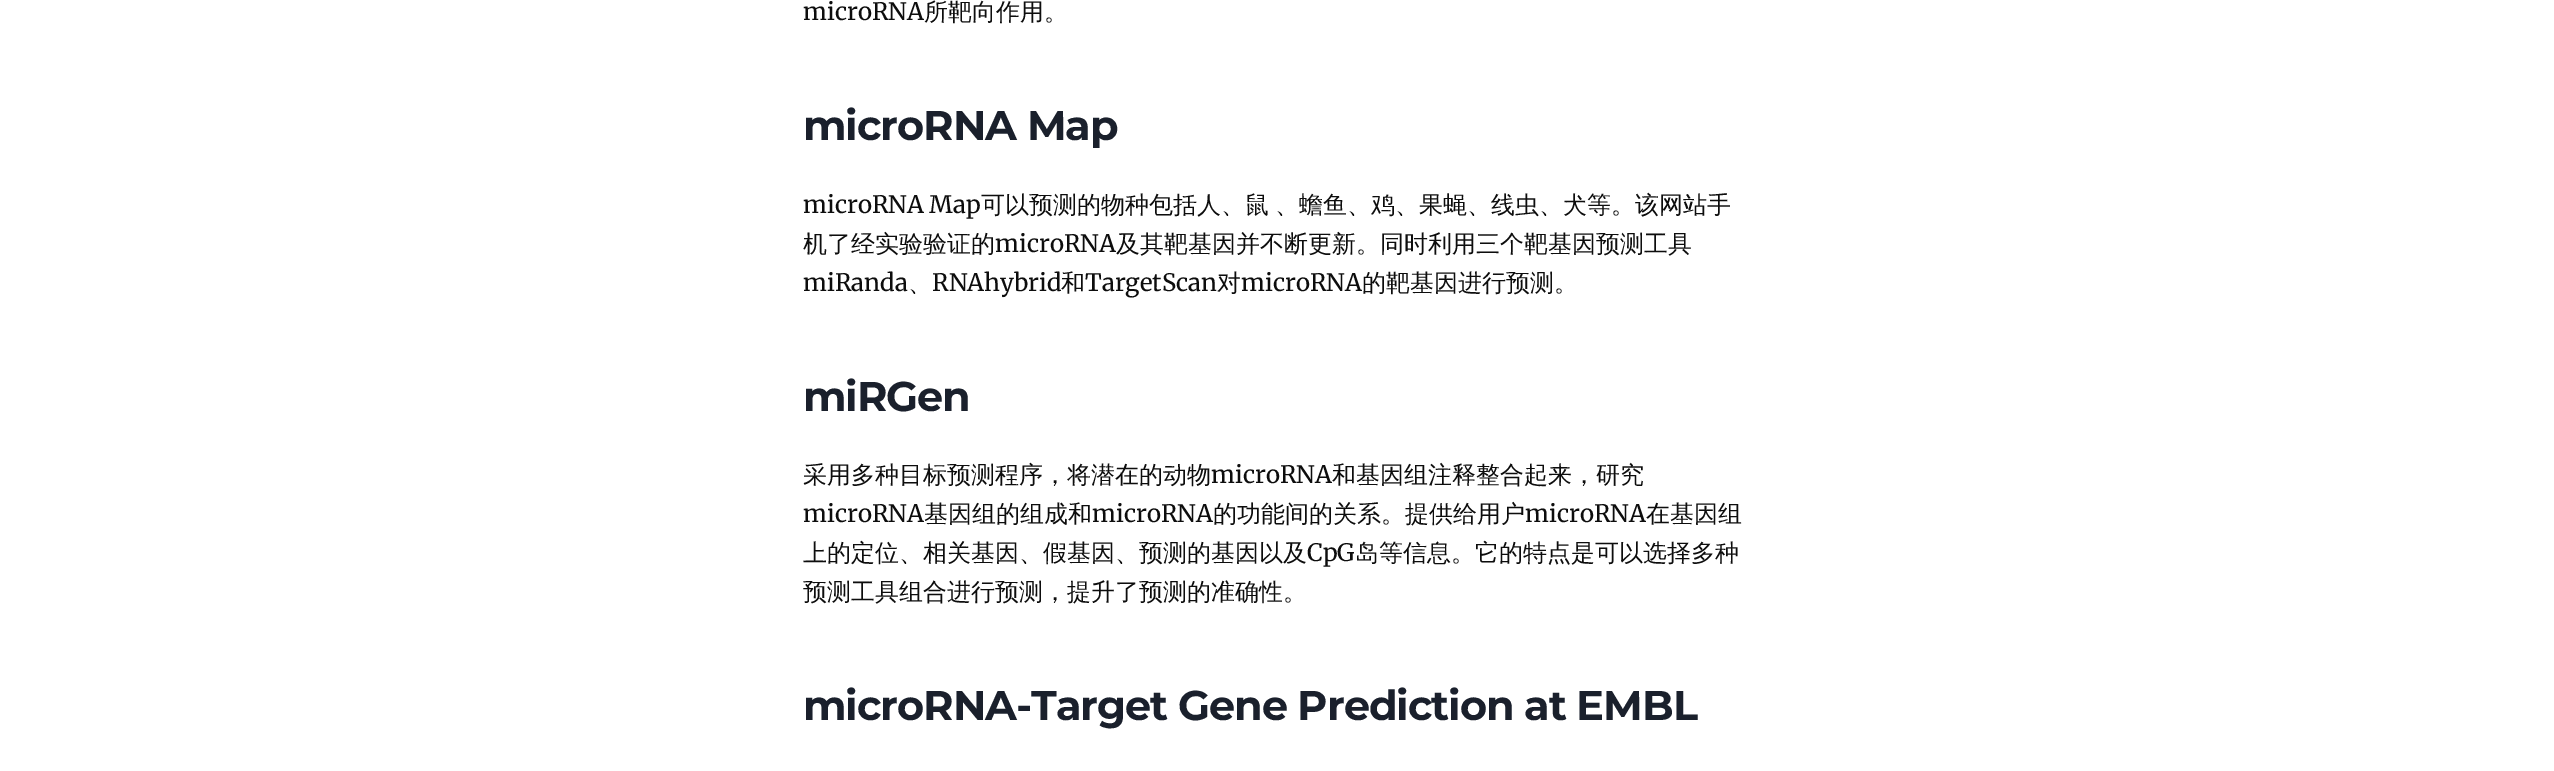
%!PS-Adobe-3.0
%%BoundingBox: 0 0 2554 771
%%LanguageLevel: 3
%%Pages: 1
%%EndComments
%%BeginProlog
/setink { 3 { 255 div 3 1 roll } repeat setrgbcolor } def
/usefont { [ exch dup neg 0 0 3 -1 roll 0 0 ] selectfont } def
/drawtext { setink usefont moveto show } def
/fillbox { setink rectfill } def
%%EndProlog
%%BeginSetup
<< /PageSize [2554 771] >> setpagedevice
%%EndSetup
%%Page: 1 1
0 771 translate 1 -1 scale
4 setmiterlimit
0 0 2554 771 255 255 255 fillbox
(microRNA) 803 20 /Merriweather-Regular 24 13 13 13 drawtext
(所靶向作用。) 924 20 /WenQuanYiZenHei-Medium 24 13 13 13 drawtext
/Montserrat-Bold 41.5 usefont
26 32 44 setink
803 140 moveto -1.05 0 (microRNA Map) ashow
(microRNA Map) 803 213 /Merriweather-Regular 24 13 13 13 drawtext
(可以预测的物种包括人、鼠) 981 213 /WenQuanYiZenHei-Medium 24 13 13 13 drawtext
(、蟾鱼、鸡、果蝇、线虫、犬等。该网站手) 1275 213 /WenQuanYiZenHei-Medium 24 13 13 13 drawtext
(机了经实验验证的) 803 252 /WenQuanYiZenHei-Medium 24 13 13 13 drawtext
(microRNA) 995 252 /Merriweather-Regular 24 13 13 13 drawtext
(及其靶基因并不断更新。同时利用三个靶基因预测工具) 1116 252 /WenQuanYiZenHei-Medium 24 13 13 13 drawtext
(miRanda) 803 291 /Merriweather-Regular 24 13 13 13 drawtext
(、) 908 291 /WenQuanYiZenHei-Medium 24 13 13 13 drawtext
(RNAhybrid) 932 291 /Merriweather-Regular 24 13 13 13 drawtext
(和) 1061 291 /WenQuanYiZenHei-Medium 24 13 13 13 drawtext
(TargetScan) 1085 291 /Merriweather-Regular 24 13 13 13 drawtext
(对) 1217 291 /WenQuanYiZenHei-Medium 24 13 13 13 drawtext
(microRNA) 1241 291 /Merriweather-Regular 24 13 13 13 drawtext
(的靶基因进行预测。) 1362 291 /WenQuanYiZenHei-Medium 24 13 13 13 drawtext
/Montserrat-Bold 41.5 usefont
26 32 44 setink
803 411 moveto -1.05 0 (miRGen) ashow
(采用多种目标预测程序，将潜在的动物) 803 483 /WenQuanYiZenHei-Medium 24 13 13 13 drawtext
(microRNA) 1211 483 /Merriweather-Regular 24 13 13 13 drawtext
(和基因组注释整合起来，研究) 1332 483 /WenQuanYiZenHei-Medium 24 13 13 13 drawtext
(microRNA) 803 522 /Merriweather-Regular 24 13 13 13 drawtext
(基因组的组成和) 924 522 /WenQuanYiZenHei-Medium 24 13 13 13 drawtext
(microRNA) 1092 522 /Merriweather-Regular 24 13 13 13 drawtext
(的功能间的关系。提供给用户) 1213 522 /WenQuanYiZenHei-Medium 24 13 13 13 drawtext
(microRNA) 1525 522 /Merriweather-Regular 24 13 13 13 drawtext
(在基因组) 1646 522 /WenQuanYiZenHei-Medium 24 13 13 13 drawtext
(上的定位、相关基因、假基因、预测的基因以及) 803 561 /WenQuanYiZenHei-Medium 24 13 13 13 drawtext
(CpG) 1307 561 /Merriweather-Regular 24 13 13 13 drawtext
(岛等信息。它的特点是可以选择多种) 1355 561 /WenQuanYiZenHei-Medium 24 13 13 13 drawtext
(预测工具组合进行预测，提升了预测的准确性。) 803 600 /WenQuanYiZenHei-Medium 24 13 13 13 drawtext
/Montserrat-Bold 41.5 usefont
26 32 44 setink
803 720 moveto -1.05 0 (microRNA-Target Gene Prediction at EMBL) ashow
showpage
%%EOF
